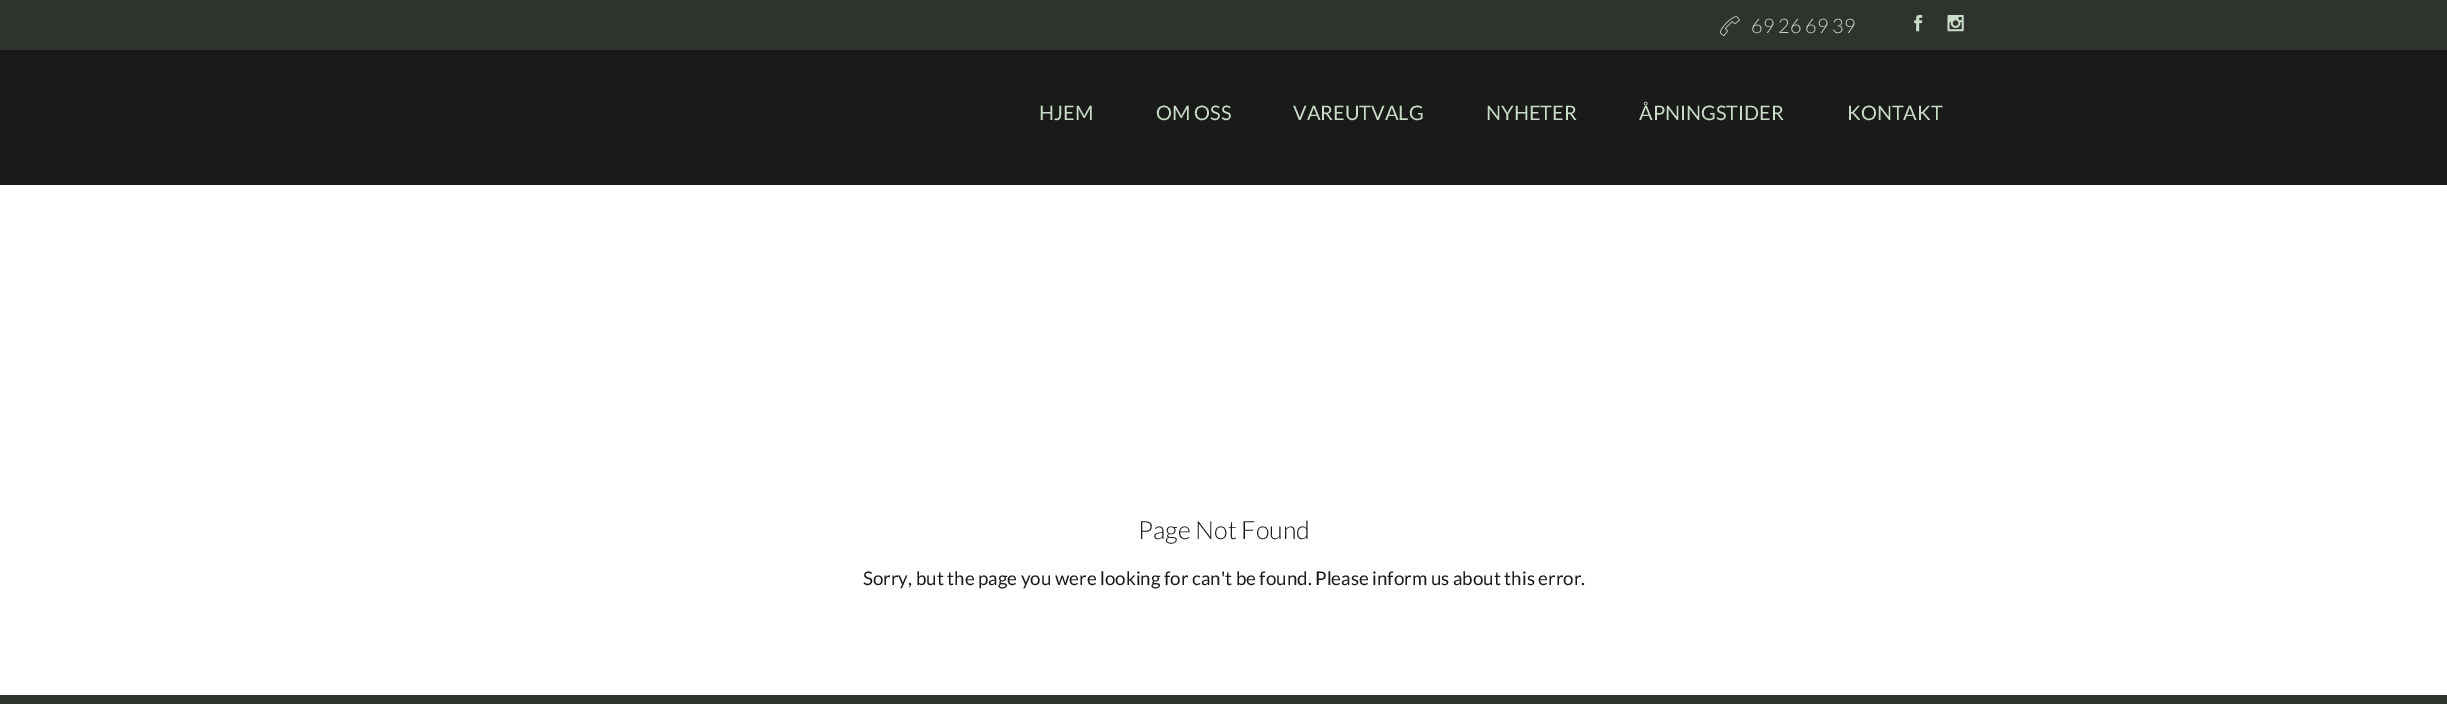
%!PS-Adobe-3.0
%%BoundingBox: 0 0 2447 704
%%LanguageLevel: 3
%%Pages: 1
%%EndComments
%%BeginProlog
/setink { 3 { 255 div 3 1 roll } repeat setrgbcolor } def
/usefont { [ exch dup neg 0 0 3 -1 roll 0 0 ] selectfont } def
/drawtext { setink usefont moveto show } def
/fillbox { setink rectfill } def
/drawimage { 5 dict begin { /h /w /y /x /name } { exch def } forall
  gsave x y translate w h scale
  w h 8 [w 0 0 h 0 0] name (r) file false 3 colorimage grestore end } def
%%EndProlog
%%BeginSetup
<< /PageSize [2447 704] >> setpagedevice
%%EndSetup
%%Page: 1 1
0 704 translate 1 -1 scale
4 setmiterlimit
0 0 2447 704 255 255 255 fillbox
0 50 2447 135 26 26 26 fillbox
0 0 2447 50 46 51 46 fillbox
(assets/img1.rgb) 1720 16 20 21 drawimage
(69 26 69 39) 1751 33 /Lato-Light 20 200 220 200 drawtext
(assets/img2.rgb) 1914 15 9 17 drawimage
(assets/img3.rgb) 1947 15 17 17 drawimage
(HJEM) 1039 120 /Lato-Regular 20 200 220 200 drawtext
(OM OSS) 1156 120 /Lato-Regular 20 200 220 200 drawtext
(VAREUTVALG) 1293 120 /Lato-Regular 20 200 220 200 drawtext
(NYHETER) 1486 120 /Lato-Regular 20 200 220 200 drawtext
(ÅPNINGSTIDER) 1639 120 /Lato-Regular 20 200 220 200 drawtext
(KONTAKT) 1847 120 /Lato-Regular 20 200 220 200 drawtext
(Page Not Found) 1138 539 /Lato-Light 25 26 26 26 drawtext
(Sorry, but the page you were looking for can't be found. Please inform us about this error.) 863 585 /Lato-Regular 18.75 26 26 26 drawtext
0 695 2447 9 46 51 46 fillbox
showpage
%%EOF
